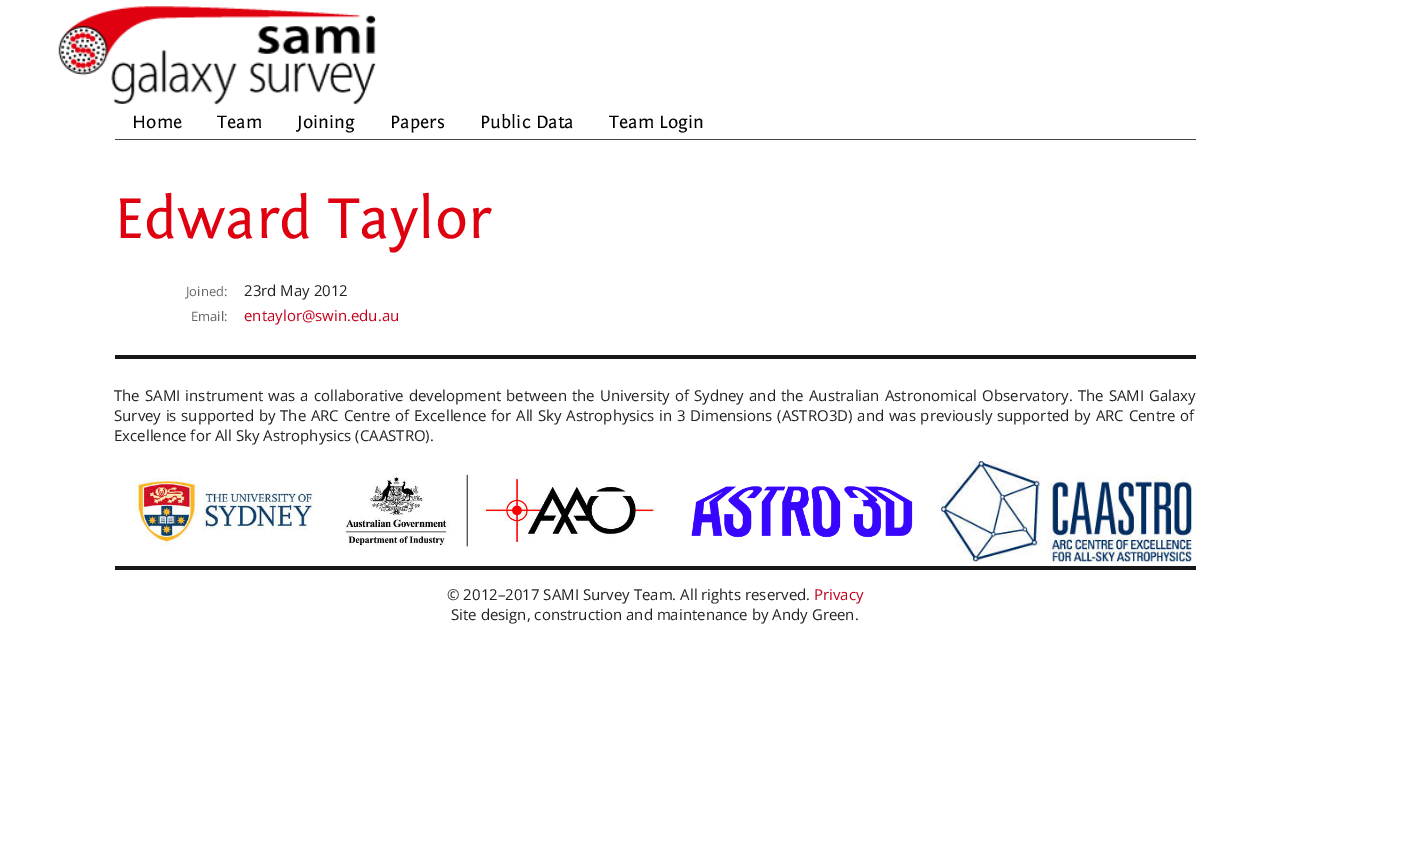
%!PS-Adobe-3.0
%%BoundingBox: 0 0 1403 855
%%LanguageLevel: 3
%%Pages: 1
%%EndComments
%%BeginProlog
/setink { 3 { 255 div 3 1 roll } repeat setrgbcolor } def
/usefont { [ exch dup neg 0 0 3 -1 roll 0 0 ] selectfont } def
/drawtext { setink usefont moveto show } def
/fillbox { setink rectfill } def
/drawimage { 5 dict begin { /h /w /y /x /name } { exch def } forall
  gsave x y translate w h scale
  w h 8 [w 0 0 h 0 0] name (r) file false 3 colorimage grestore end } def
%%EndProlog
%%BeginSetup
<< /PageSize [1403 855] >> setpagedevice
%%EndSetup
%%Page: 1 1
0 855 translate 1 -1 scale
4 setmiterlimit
0 0 1403 855 255 255 255 fillbox
(assets/img1.rgb) 58 6 318 99 drawimage
115 139 1081 1 70 70 70 fillbox
(Home) 132 128 /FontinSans-Regular 18.75 0 0 0 drawtext
(Team) 217 128 /FontinSans-Regular 18.75 0 0 0 drawtext
(Joining) 297 128 /FontinSans-Regular 18.75 0 0 0 drawtext
(Papers) 390 128 /FontinSans-Regular 18.75 0 0 0 drawtext
(Public Data) 480 128 /FontinSans-Regular 18.75 0 0 0 drawtext
(Team Login) 609 128 /FontinSans-Regular 18.75 0 0 0 drawtext
(Edward Taylor) 114 238 /FontinSans-Regular 60 223 0 16 drawtext
(Joined:) 186 296 /OpenSans-Regular 13 102 102 102 drawtext
(23rd May 2012) 244 296 /OpenSans-Regular 15 34 34 34 drawtext
(Email:) 191 321 /OpenSans-Regular 13 102 102 102 drawtext
(entaylor@swin.edu.au) 244 321 /OpenSans-Regular 15 197 0 26 drawtext
115 355 1081 4 23 23 23 fillbox
34 34 34 setink
114 401 moveto 1.2 0 32 (The SAMI instrument was a collaborative development between the University of Sydney and the Australian Astronomical Observatory. The SAMI Galaxy) widthshow
114 421 moveto 0.8 0 32 (Survey is supported by The ARC Centre of Excellence for All Sky Astrophysics in 3 Dimensions \(ASTRO3D\) and was previously supported by ARC Centre of) widthshow
(Excellence for All Sky Astrophysics \(CAASTRO\).) 114 441 /OpenSans-Regular 15 34 34 34 drawtext
(assets/img2.rgb) 134 477 180 69 drawimage
(assets/img3.rgb) 344 474 311 73 drawimage
(assets/img4.rgb) 691 486 222 52 drawimage
(assets/img5.rgb) 941 461 251 101 drawimage
115 566 1081 4 23 23 23 fillbox
(© 2012–2017 SAMI Survey Team. All rights reserved.) 447 600 /OpenSans-Regular 15 34 34 34 drawtext
(Privacy) 814 600 /OpenSans-Regular 15 197 0 26 drawtext
(Site design, construction and maintenance by Andy Green.) 451 620 /OpenSans-Regular 15 34 34 34 drawtext
showpage
%%EOF
